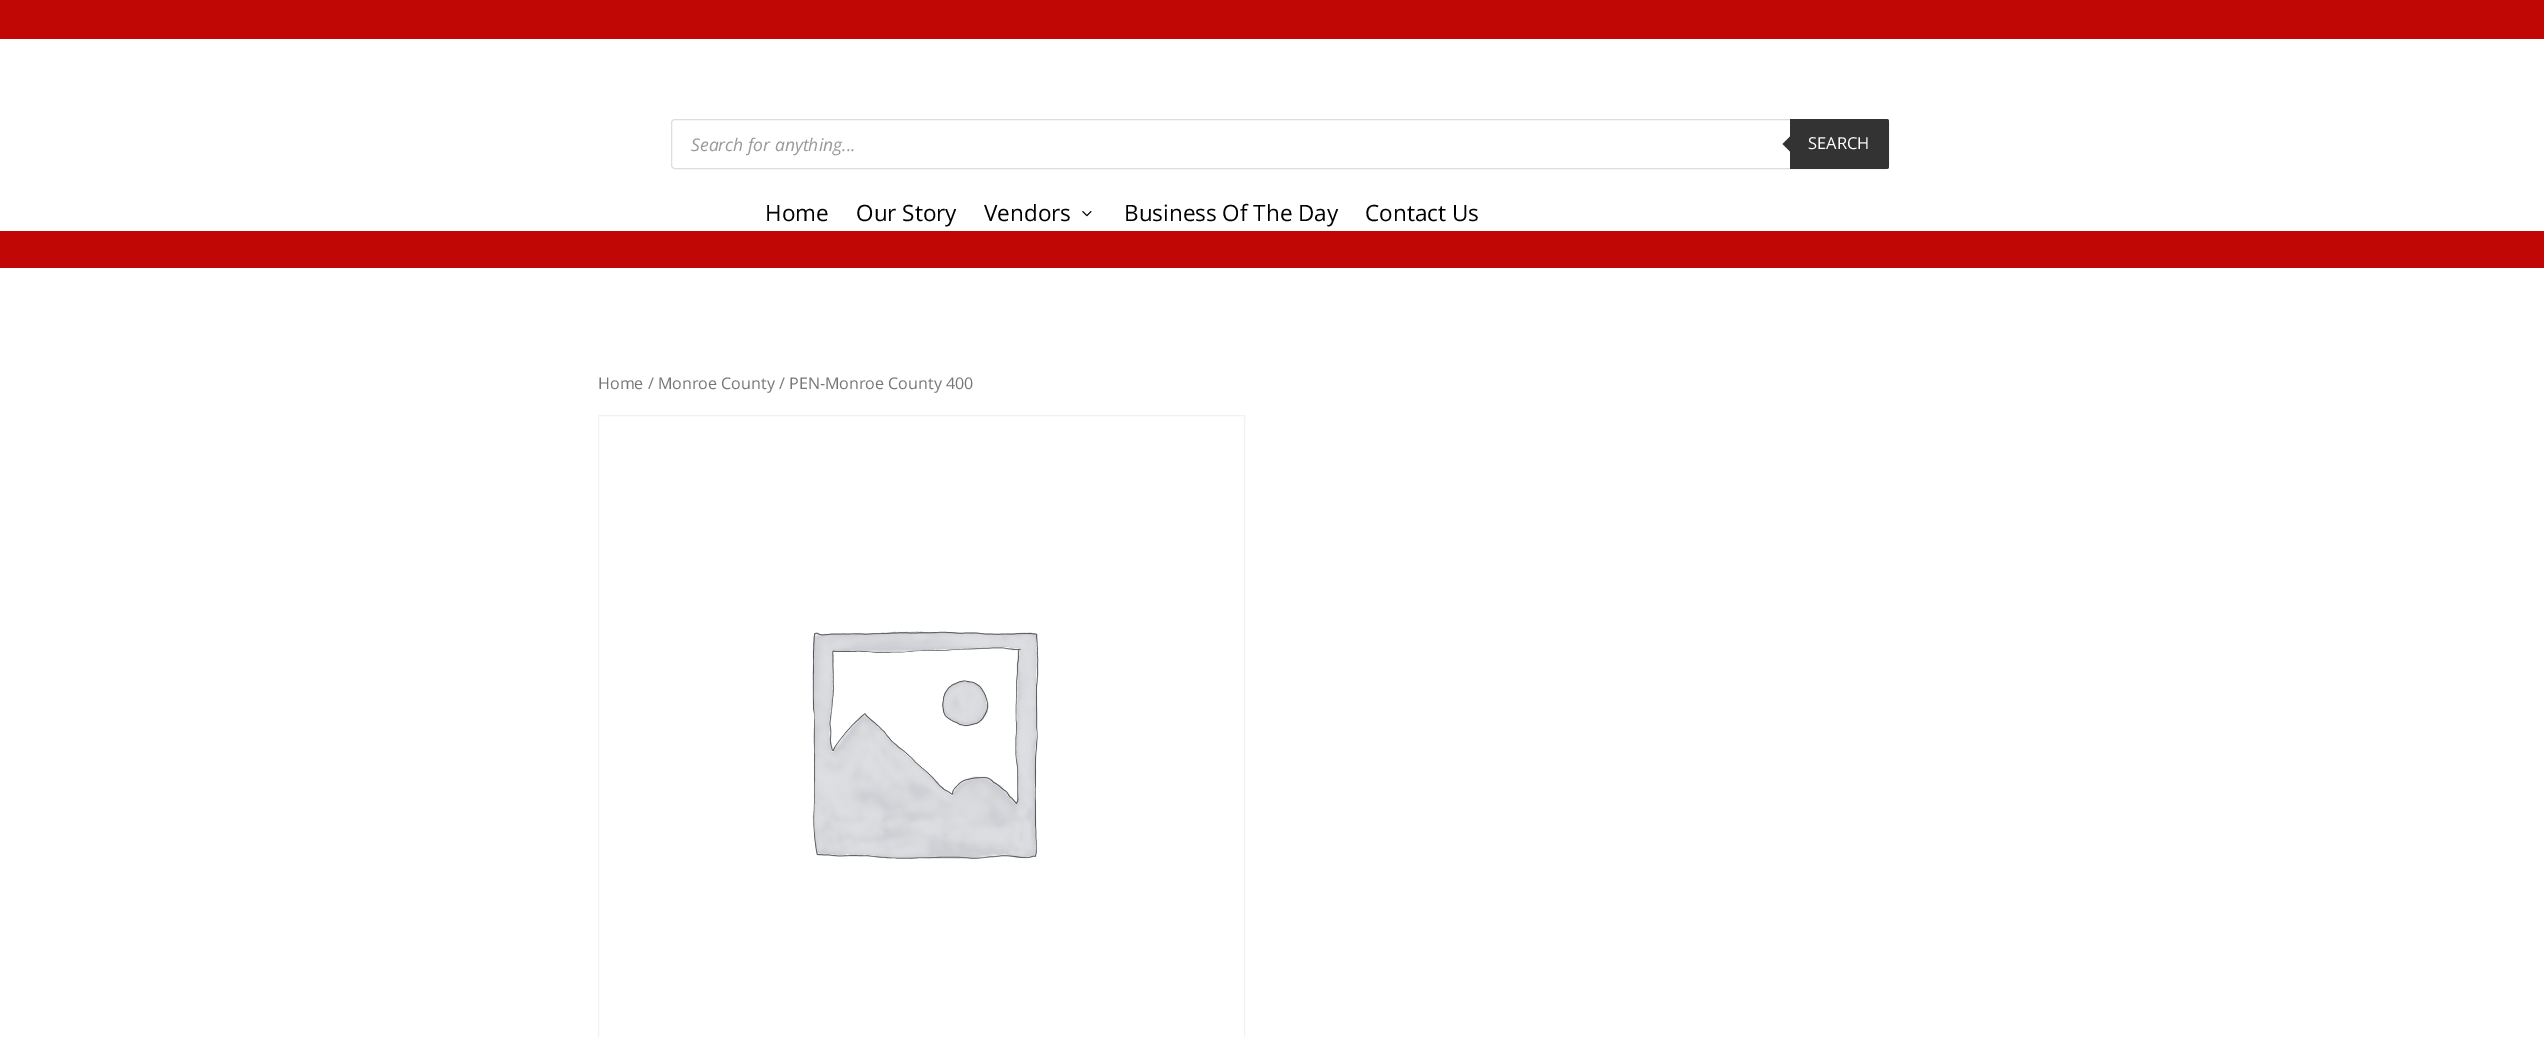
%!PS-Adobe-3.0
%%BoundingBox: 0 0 2544 1037
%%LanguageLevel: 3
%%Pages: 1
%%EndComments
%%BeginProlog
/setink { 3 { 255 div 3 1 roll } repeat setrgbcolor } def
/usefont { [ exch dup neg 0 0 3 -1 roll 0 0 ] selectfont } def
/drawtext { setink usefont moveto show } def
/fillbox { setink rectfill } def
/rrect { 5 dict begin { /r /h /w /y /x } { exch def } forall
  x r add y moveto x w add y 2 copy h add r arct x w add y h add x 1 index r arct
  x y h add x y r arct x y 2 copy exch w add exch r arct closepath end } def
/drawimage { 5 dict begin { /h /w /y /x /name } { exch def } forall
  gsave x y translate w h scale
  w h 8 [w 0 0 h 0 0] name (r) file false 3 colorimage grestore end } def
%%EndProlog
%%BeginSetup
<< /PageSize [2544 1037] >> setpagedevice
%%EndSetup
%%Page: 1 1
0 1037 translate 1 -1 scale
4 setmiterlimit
0 0 2544 1037 255 255 255 fillbox
0 0 2544 268 193 6 6 fillbox
0 39 2544 192 255 255 255 fillbox
221 221 221 setink
671.5 119.5 1217 49 3.5 rrect stroke
(Search for anything...) 691 151 /OpenSans-Italic 17.5 153 153 153 drawtext
51 51 51 setink
1790 119 moveto 1886.5 119 lineto 1888 119 1889 120 1889 121.5 curveto 1889 166.5 lineto 1889 168 1888 169 1886.5 169 curveto 1790 169 lineto closepath fill
1792.5 134 moveto 1792.5 154 lineto 1782.5 144 lineto closepath fill
(SEARCH) 1808 149 /OpenSans-Regular 16.5 255 255 255 drawtext
(Home) 765 221 /OpenSans-Regular 22.5 0 0 0 drawtext
(Our Story) 856 221 /OpenSans-Regular 22.5 0 0 0 drawtext
(Vendors) 984 221 /OpenSans-Regular 22.5 0 0 0 drawtext
(assets/img1.rgb) 1082 211 10 6 drawimage
(Business Of The Day) 1124 221 /OpenSans-Regular 22.5 0 0 0 drawtext
(Contact Us) 1365 221 /OpenSans-Regular 22.5 0 0 0 drawtext
(Home / Monroe County / PEN-Monroe County 400) 598 389 /OpenSans-Regular 16.1 118 118 118 drawtext
242 242 242 setink
598.5 415.5 646 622 rectstroke
(assets/img2.rgb) 812 631 227 229 drawimage
showpage
%%EOF
